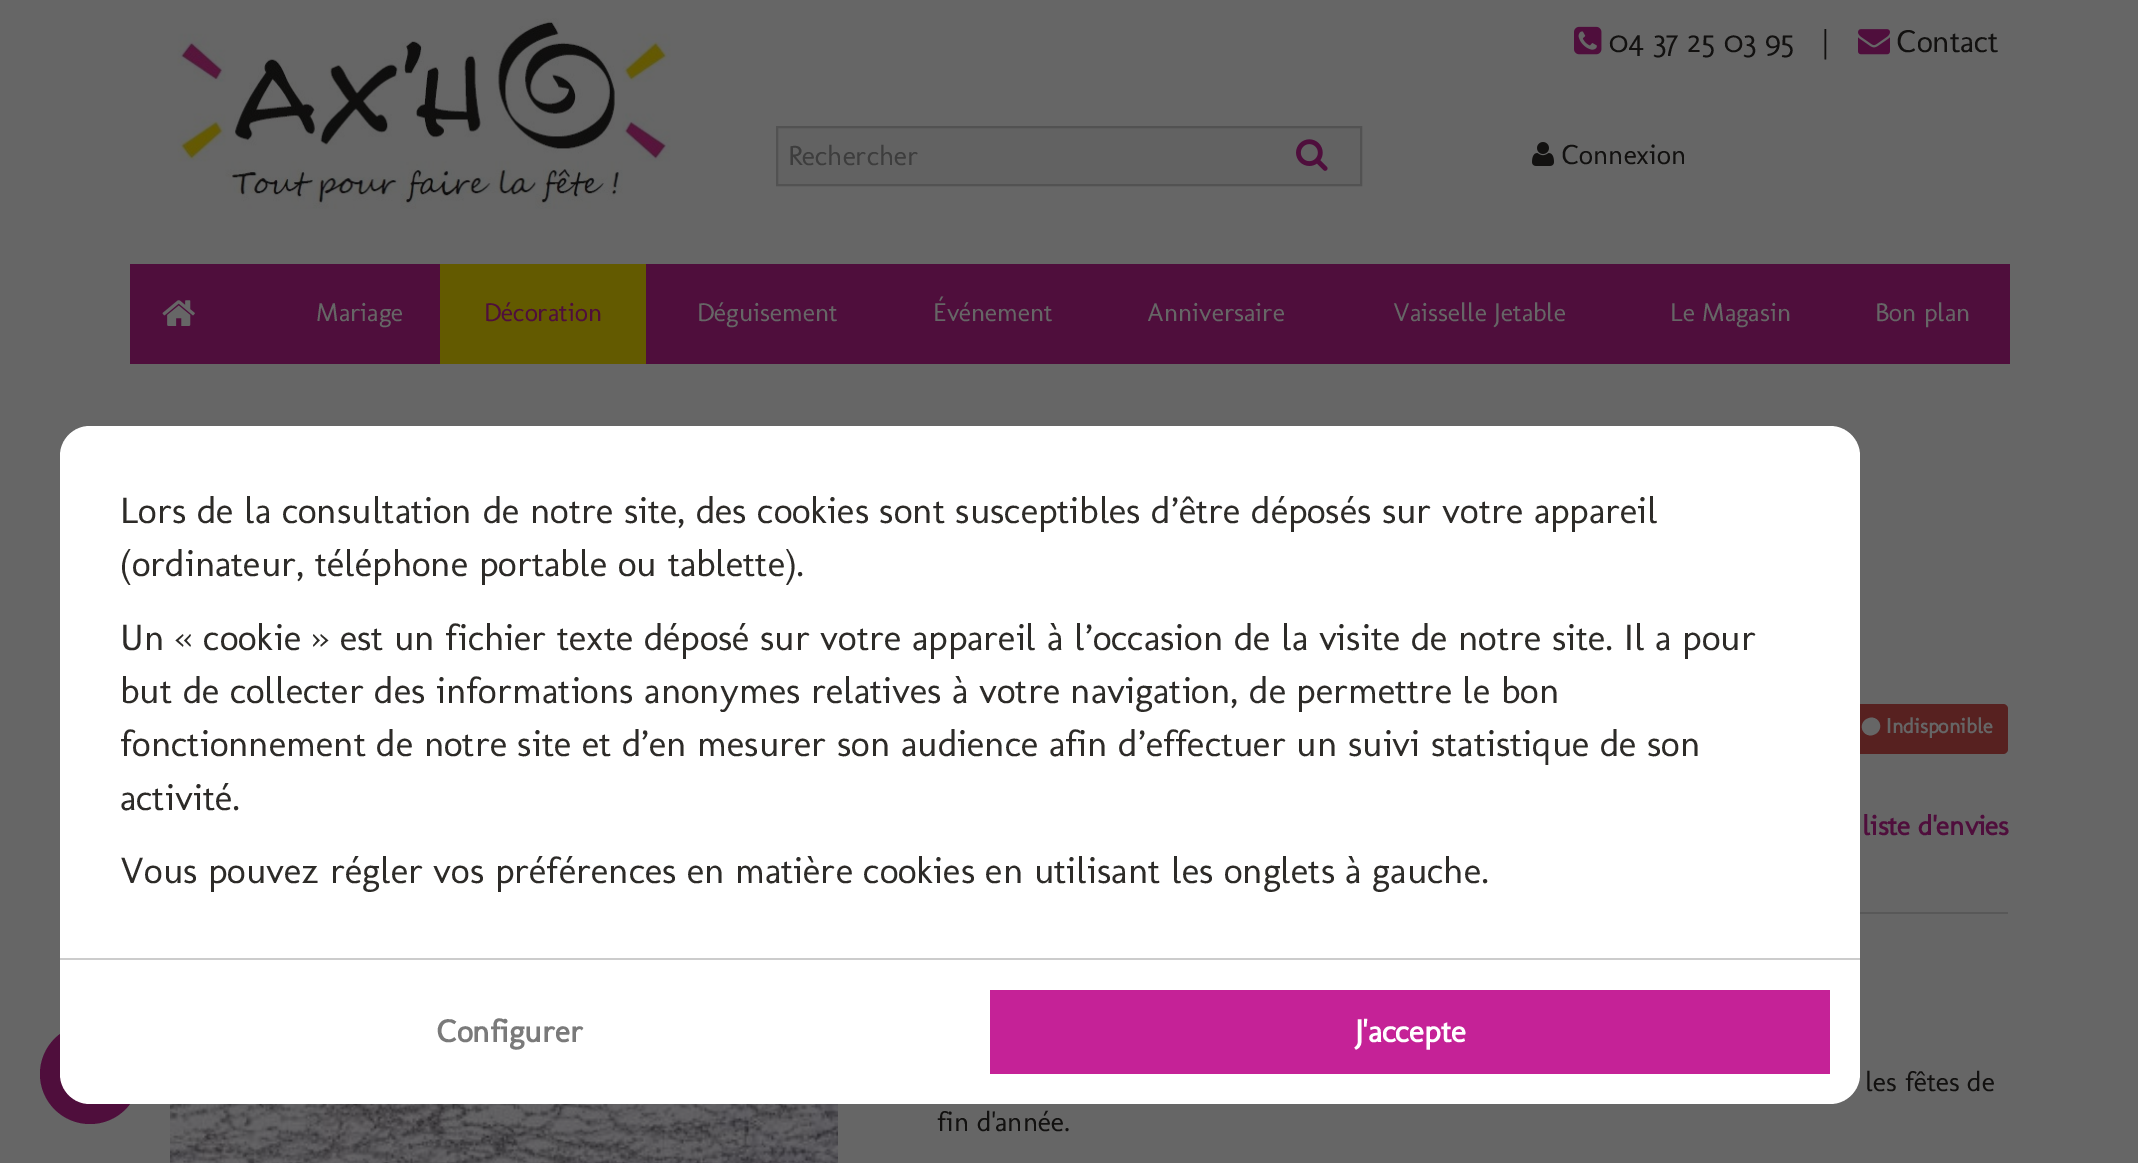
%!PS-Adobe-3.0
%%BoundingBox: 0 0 2138 1163
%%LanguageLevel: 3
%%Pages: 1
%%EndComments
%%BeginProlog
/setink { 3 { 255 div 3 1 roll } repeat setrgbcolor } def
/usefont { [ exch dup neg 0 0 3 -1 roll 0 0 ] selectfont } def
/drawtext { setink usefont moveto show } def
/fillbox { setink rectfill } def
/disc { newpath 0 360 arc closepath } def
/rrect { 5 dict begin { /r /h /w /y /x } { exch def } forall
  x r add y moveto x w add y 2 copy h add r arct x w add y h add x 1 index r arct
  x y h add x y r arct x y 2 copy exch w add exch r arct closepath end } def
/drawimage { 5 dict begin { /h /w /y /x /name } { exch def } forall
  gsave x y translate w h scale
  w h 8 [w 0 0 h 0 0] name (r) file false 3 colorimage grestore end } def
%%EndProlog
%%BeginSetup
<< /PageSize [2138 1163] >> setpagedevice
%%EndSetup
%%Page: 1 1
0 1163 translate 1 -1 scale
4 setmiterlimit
0 0 2138 1163 102 102 102 fillbox
(assets/img1.rgb) 1574 26 28 29 drawimage
(04 37 25 03 95) 1609 52 /Molengo-Regular 32 18 17 16 drawtext
(|) 1823 52 /Molengo-Regular 32 18 17 16 drawtext
(assets/img2.rgb) 1858 29 32 26 drawimage
(Contact) 1897 52 /Molengo-Regular 32 18 17 16 drawtext
(assets/img3.rgb) 177 18 494 191 drawimage
98 98 98 setink
777 127 moveto 1361 127 lineto 1361 185 lineto 777 185 lineto closepath gsave fill grestore
82 82 82 setink
2 setlinewidth
stroke
(Rechercher) 788 165 /Molengo-Regular 28 61 61 61 drawtext
(assets/img4.rgb) 1296 139 32 32 drawimage
(assets/img5.rgb) 1532 142 22 24 drawimage
(Connexion) 1562 164 /Molengo-Regular 28 18 17 16 drawtext
130 264 1880 100 79 14 60 fillbox
(assets/img6.rgb) 162 300 33 26 drawimage
(Mariage) 316 321 /Molengo-Regular 26 102 102 102 drawtext
440 264 206 100 99 90 0 fillbox
(Décoration) 484 321 /Molengo-Regular 26 79 14 60 drawtext
(Déguisement) 697 321 /Molengo-Regular 26 102 102 102 drawtext
(Événement) 933 321 /Molengo-Regular 26 102 102 102 drawtext
(Anniversaire) 1147 321 /Molengo-Regular 26 102 102 102 drawtext
(Vaisselle Jetable) 1393 321 /Molengo-Regular 26 102 102 102 drawtext
(Le Magasin) 1670 321 /Molengo-Regular 26 102 102 102 drawtext
(Bon plan) 1875 321 /Molengo-Regular 26 102 102 102 drawtext
79 14 60 setink
90 1074 50 disc fill
(assets/img7.rgb) 170 1104 668 59 drawimage
87 33 32 setink
1846 704 162 50 5 rrect fill
102 102 102 setink
1879 722 moveto 1884.5 732 1869 741 1863 731 curveto 1857.5 721 1873 712 1879 722 curveto closepath fill
(Indisponible) 1886 733 /Molengo-Bold 21 102 102 102 drawtext
(liste d'envies) 1862 835 /Molengo-Bold 28 79 14 60 drawtext
1860 912 148 2 88 88 88 fillbox
(les fêtes de) 1865 1091 /Molengo-Regular 28 18 17 16 drawtext
(fin d'année.) 937 1131 /Molengo-Regular 28 18 17 16 drawtext
255 255 255 setink
60 426 1800 678 30 rrect fill
(Lors de la consultation de notre site, des cookies sont susceptibles d’être déposés sur votre appareil) 120 523 /Molengo-Regular 37.35 45 43 40 drawtext
(\(ordinateur, téléphone portable ou tablette\).) 120 576 /Molengo-Regular 37.35 45 43 40 drawtext
(Un « cookie » est un fichier texte déposé sur votre appareil à l’occasion de la visite de notre site. Il a pour) 120 650 /Molengo-Regular 37.35 45 43 40 drawtext
(but de collecter des informations anonymes relatives à votre navigation, de permettre le bon) 120 703 /Molengo-Regular 37.35 45 43 40 drawtext
(fonctionnement de notre site et d’en mesurer son audience afin d’effectuer un suivi statistique de son) 120 756 /Molengo-Regular 37.35 45 43 40 drawtext
(activité.) 120 810 /Molengo-Regular 37.35 45 43 40 drawtext
(Vous pouvez régler vos préférences en matière cookies en utilisant les onglets à gauche.) 120 883 /Molengo-Regular 37.35 45 43 40 drawtext
60 958 1800 2 204 204 204 fillbox
(Configurer) 437 1042 /Molengo-Bold 32 122 122 122 drawtext
990 990 840 84 197 34 151 fillbox
(J'accepte) 1355 1042 /Molengo-Bold 32 255 255 255 drawtext
showpage
%%EOF
